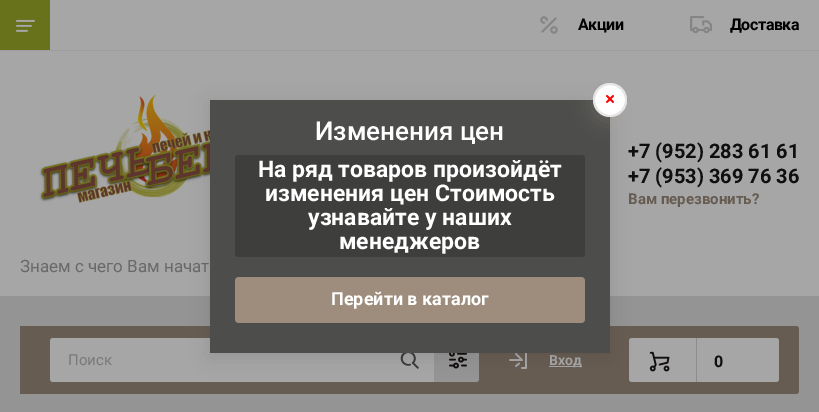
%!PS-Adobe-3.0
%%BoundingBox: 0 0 819 412
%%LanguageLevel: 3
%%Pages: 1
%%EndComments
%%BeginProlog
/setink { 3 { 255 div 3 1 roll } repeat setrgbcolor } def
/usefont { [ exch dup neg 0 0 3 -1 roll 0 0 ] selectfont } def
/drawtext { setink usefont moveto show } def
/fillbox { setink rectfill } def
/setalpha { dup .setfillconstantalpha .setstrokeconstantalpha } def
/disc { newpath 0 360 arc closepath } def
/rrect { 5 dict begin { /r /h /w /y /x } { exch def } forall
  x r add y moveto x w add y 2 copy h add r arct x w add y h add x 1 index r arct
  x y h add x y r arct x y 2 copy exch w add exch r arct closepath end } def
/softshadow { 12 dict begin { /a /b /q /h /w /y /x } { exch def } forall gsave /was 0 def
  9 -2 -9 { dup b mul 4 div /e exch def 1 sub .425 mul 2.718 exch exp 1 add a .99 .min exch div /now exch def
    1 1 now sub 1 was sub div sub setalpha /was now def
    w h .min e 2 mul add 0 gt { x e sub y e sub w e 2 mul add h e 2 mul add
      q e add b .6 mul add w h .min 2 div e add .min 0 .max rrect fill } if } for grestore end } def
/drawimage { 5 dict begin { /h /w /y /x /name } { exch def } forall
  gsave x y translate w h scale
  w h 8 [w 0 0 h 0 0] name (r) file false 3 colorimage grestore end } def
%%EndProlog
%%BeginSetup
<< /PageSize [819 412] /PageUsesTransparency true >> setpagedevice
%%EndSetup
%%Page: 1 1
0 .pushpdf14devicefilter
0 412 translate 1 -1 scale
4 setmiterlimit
0 0 819 412 148 148 148 fillbox
0 0 819 296 166 166 166 fillbox
0 0 50 50 103 114 26 fillbox
(assets/img1.rgb) 16 19 19 13 drawimage
(assets/img2.rgb) 540 16 18 18 drawimage
/Roboto-Bold 16 usefont
0 0 0 setink
578 30 moveto -0.5 0 (Акции) ashow
(assets/img3.rgb) 690 16 22 18 drawimage
730 30 moveto -0.5 0 (Доставка) ashow
0 50 819 1 157 157 157 fillbox
(+7 \(952\) 283 61 61) 628 158 /Roboto-Bold 20 16 15 15 drawtext
(+7 \(953\) 369 76 36) 628 183 /Roboto-Bold 20 16 15 15 drawtext
(Вам перезвонить?) 628 204 /Roboto-Bold 15 103 92 81 drawtext
(assets/img4.rgb) 39 94 171 109 drawimage
(Знаем с чего Вам начат) 20 272 /Roboto-Regular 17 105 105 105 drawtext
103 92 81 setink
20 326 moveto 796 326 lineto 797.5 326 799 327.5 799 329 curveto 799 391 lineto 799 392.5 797.5 394 796 394 curveto 20 394 lineto closepath fill
166 166 166 setink
53 338 moveto 434 338 lineto 434 382 lineto 53 382 lineto 51.5 382 50 380.5 50 379 curveto 50 341 lineto 50 339.5 51.5 338 53 338 curveto closepath fill
(Поиск) 68 365 /Roboto-Regular 15 120 120 120 drawtext
(assets/img5.rgb) 400 353 19 16 drawimage
149 149 149 setink
434 338 moveto 476 338 lineto 477.5 338 479 339.5 479 341 curveto 479 379 lineto 479 380.5 477.5 382 476 382 curveto 434 382 lineto closepath fill
(assets/img6.rgb) 449 353 18 16 drawimage
(assets/img7.rgb) 509 353 18 16 drawimage
549 366 33 1 166 166 166 fillbox
(Вход) 549 365 /Roboto-Bold 14 166 166 166 drawtext
629 338 150 44 3 rrect fill
(assets/img8.rgb) 649 351 21 21 drawimage
696 338 1 44 141 141 141 fillbox
(0) 714 367 /Roboto-Bold 16 16 15 15 drawtext
0 0 0 setink
210 104 400 253 0 10 0.1 softshadow
210 100 400 253 77 77 76 fillbox
195 178 155 setink
593 87 34 34 17 10 0.2 softshadow
255 255 255 setink
610 100 17 disc fill
(assets/img9.rgb) 606 95 8 8 drawimage
0.1 setalpha
0 0 0 setink
2 setlinewidth
610 100 16 disc stroke
1 setalpha
(Изменения цен) 315 140 /Roboto-Medium 26 255 255 255 drawtext
62 62 61 setink
235 155 350 102 3 rrect fill
(На ряд товаров произойдёт) 258 177 /Roboto-Bold 23 255 255 255 drawtext
(изменения цен Стоимость) 265 201 /Roboto-Bold 23 255 255 255 drawtext
(узнавайте у наших) 308 225 /Roboto-Bold 23 255 255 255 drawtext
(менеджеров) 339 249 /Roboto-Bold 23 255 255 255 drawtext
158 141 124 setink
235 277 350 46 4 rrect fill
(Перейти в каталог) 331 305 /Roboto-Bold 18 255 255 255 drawtext
.poppdf14devicefilter showpage
%%EOF
